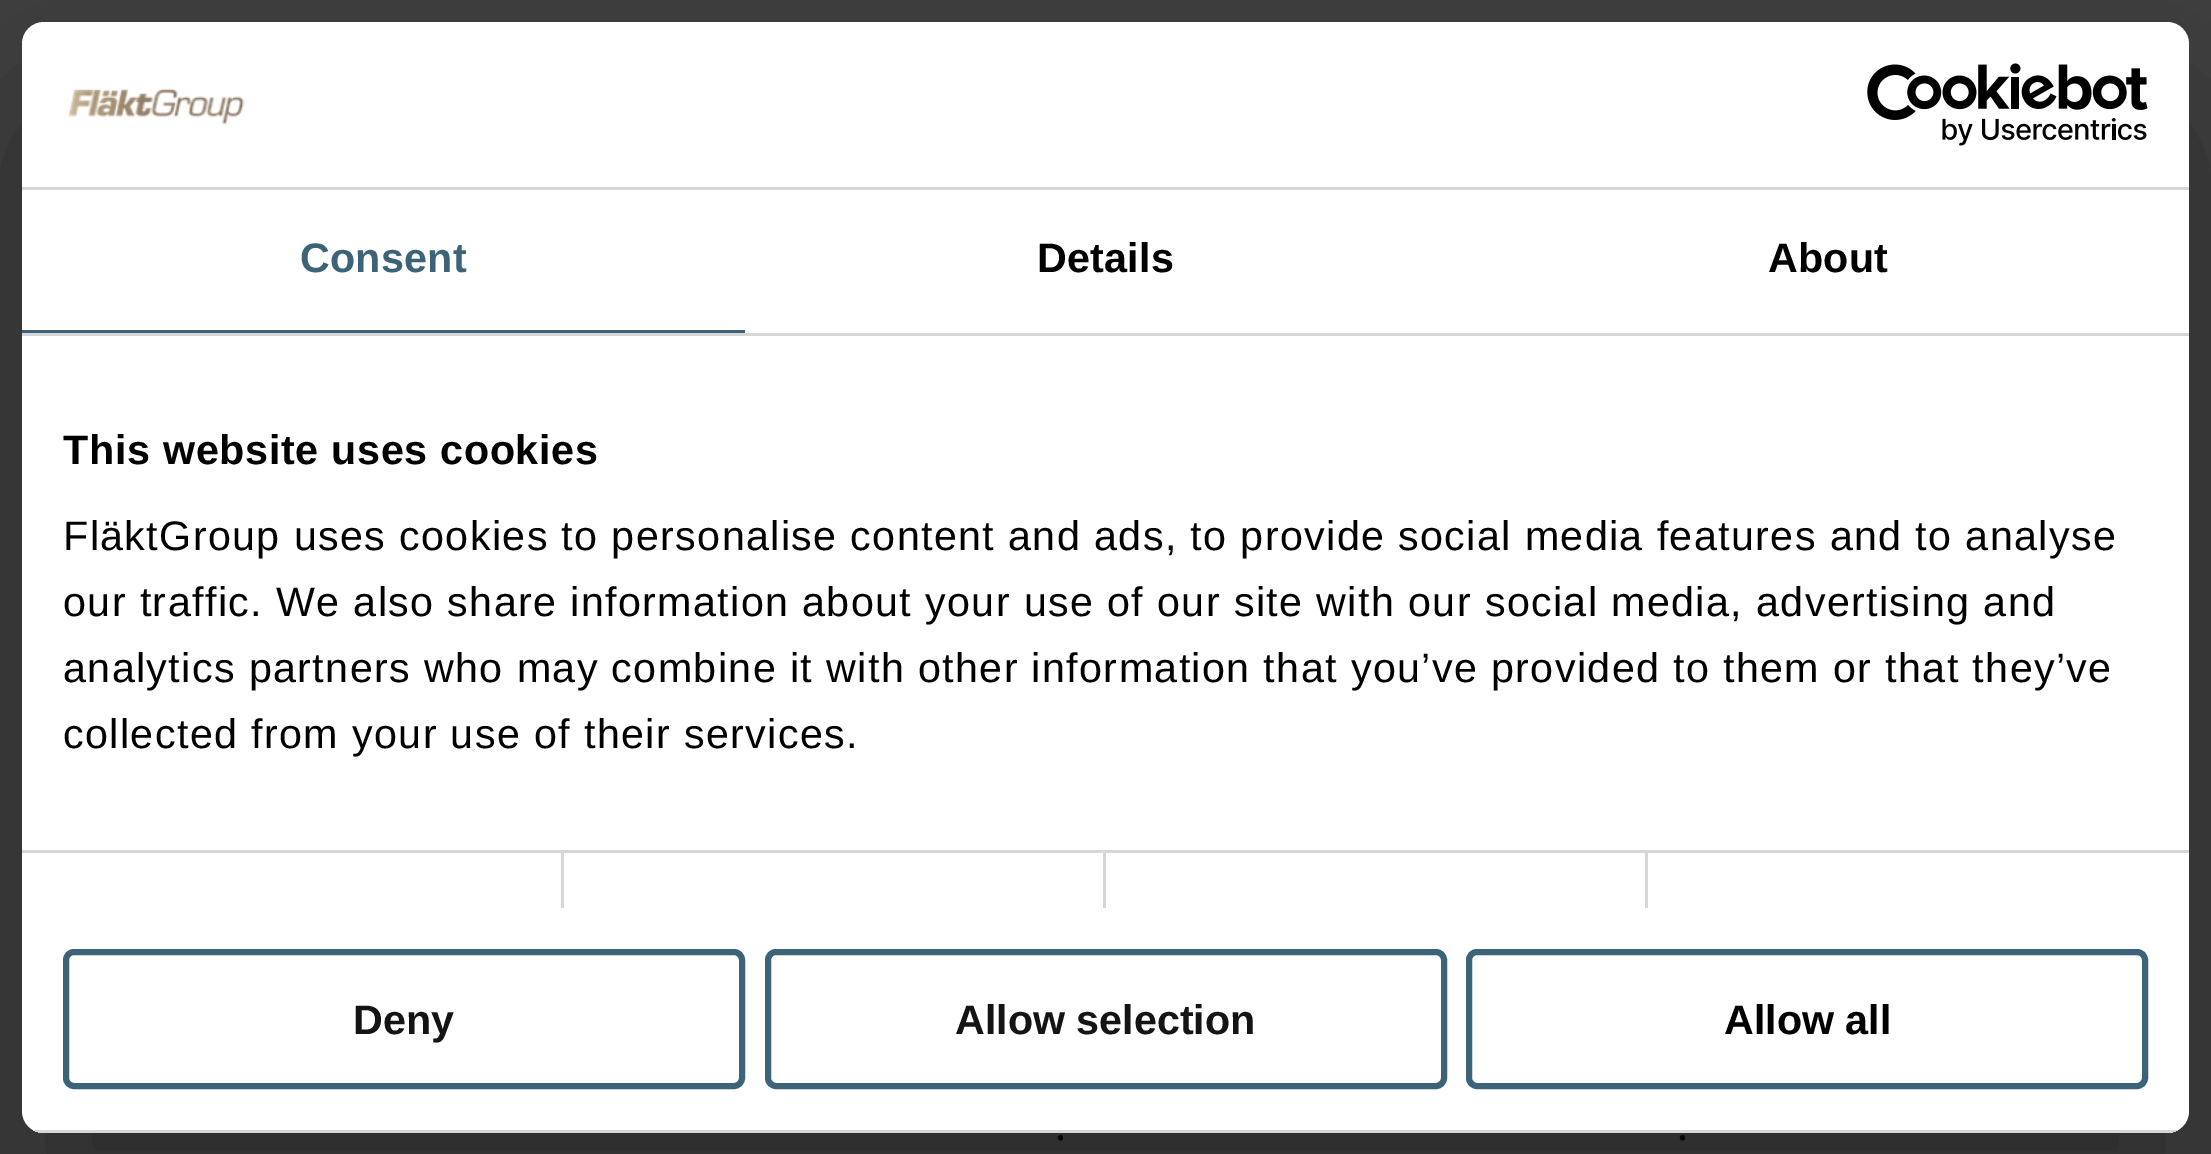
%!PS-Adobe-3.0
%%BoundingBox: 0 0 2211 1154
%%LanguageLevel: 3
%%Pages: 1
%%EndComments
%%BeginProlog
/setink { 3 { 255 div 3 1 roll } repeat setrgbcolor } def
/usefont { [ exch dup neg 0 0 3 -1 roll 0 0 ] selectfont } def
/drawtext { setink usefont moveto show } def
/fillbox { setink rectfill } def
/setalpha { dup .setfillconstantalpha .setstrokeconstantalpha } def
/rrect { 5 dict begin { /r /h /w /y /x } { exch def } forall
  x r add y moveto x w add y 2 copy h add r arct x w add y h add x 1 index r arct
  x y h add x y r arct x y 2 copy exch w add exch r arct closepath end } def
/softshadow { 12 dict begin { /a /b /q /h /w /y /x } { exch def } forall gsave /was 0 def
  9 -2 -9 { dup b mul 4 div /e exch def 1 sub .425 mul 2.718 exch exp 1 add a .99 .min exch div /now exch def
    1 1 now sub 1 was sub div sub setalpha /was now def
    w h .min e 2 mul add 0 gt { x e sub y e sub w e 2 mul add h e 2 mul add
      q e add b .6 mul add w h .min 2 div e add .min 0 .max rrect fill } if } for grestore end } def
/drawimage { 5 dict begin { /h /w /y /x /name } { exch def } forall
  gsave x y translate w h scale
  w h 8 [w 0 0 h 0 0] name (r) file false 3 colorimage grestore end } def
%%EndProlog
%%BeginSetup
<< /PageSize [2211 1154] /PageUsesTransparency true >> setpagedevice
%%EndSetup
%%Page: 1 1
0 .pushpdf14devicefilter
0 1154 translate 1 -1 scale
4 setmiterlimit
0 0 2211 1154 64 64 64 fillbox
0 0 0 setink
22 110 2167 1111 22 93.5 0.3 softshadow
255 255 255 setink
22 22 2167 1111 22 rrect fill
22 187 2167 3 214 214 214 fillbox
(assets/img1.rgb) 68 88 177 37 drawimage
(assets/img2.rgb) 1867 63 281 83 drawimage
22 333 2167 3 214 214 214 fillbox
22 330 723 3 60 99 120 fillbox
/LiberationSans-Bold 41.25 usefont
300 272 moveto 0.25 0 (Consent) ashow
0 0 0 setink
1037 272 moveto 0.25 0 (Details) ashow
1768 272 moveto 0.25 0 (About) ashow
22 850 2167 3 214 214 214 fillbox
0 0 0 setink
63 464 moveto 0.7 0 (This website uses cookies) ashow
/LiberationSans-Regular 41.25 usefont
63 550 moveto 1.38 0 (FläktGroup uses cookies to personalise content and ads, to provide social media features and to analyse) ashow
63 616 moveto 1.38 0 (our traffic. We also share information about your use of our site with our social media, advertising and) ashow
63 682 moveto 1.38 0 (analytics partners who may combine it with other information that you’ve provided to them or that they’ve) ashow
63 748 moveto 1.38 0 (collected from your use of their services.) ashow
561 853 3 55 214 214 214 fillbox
1103 853 3 55 214 214 214 fillbox
1645 853 3 55 214 214 214 fillbox
gsave
22 22 2167 1111 22 rrect clip newpath
33 1130 2145 3 214 214 214 fillbox
grestore
60 99 120 setink
6 setlinewidth
66 952 676 134 8 rrect stroke
(Deny) 353 1034 /LiberationSans-Bold 41.25 20 20 20 drawtext
60 99 120 setink
768 952 676 134 8 rrect stroke
(Allow selection) 955 1034 /LiberationSans-Bold 41.25 20 20 20 drawtext
60 99 120 setink
1469 952 676 134 8 rrect stroke
(Allow all) 1724 1034 /LiberationSans-Bold 41.25 0 0 0 drawtext
(.) 1055 1140 /SourceSansPro-Regular 44 6 6 7 drawtext
(.) 1677 1140 /SourceSansPro-Regular 44 6 6 7 drawtext
.poppdf14devicefilter showpage
%%EOF
